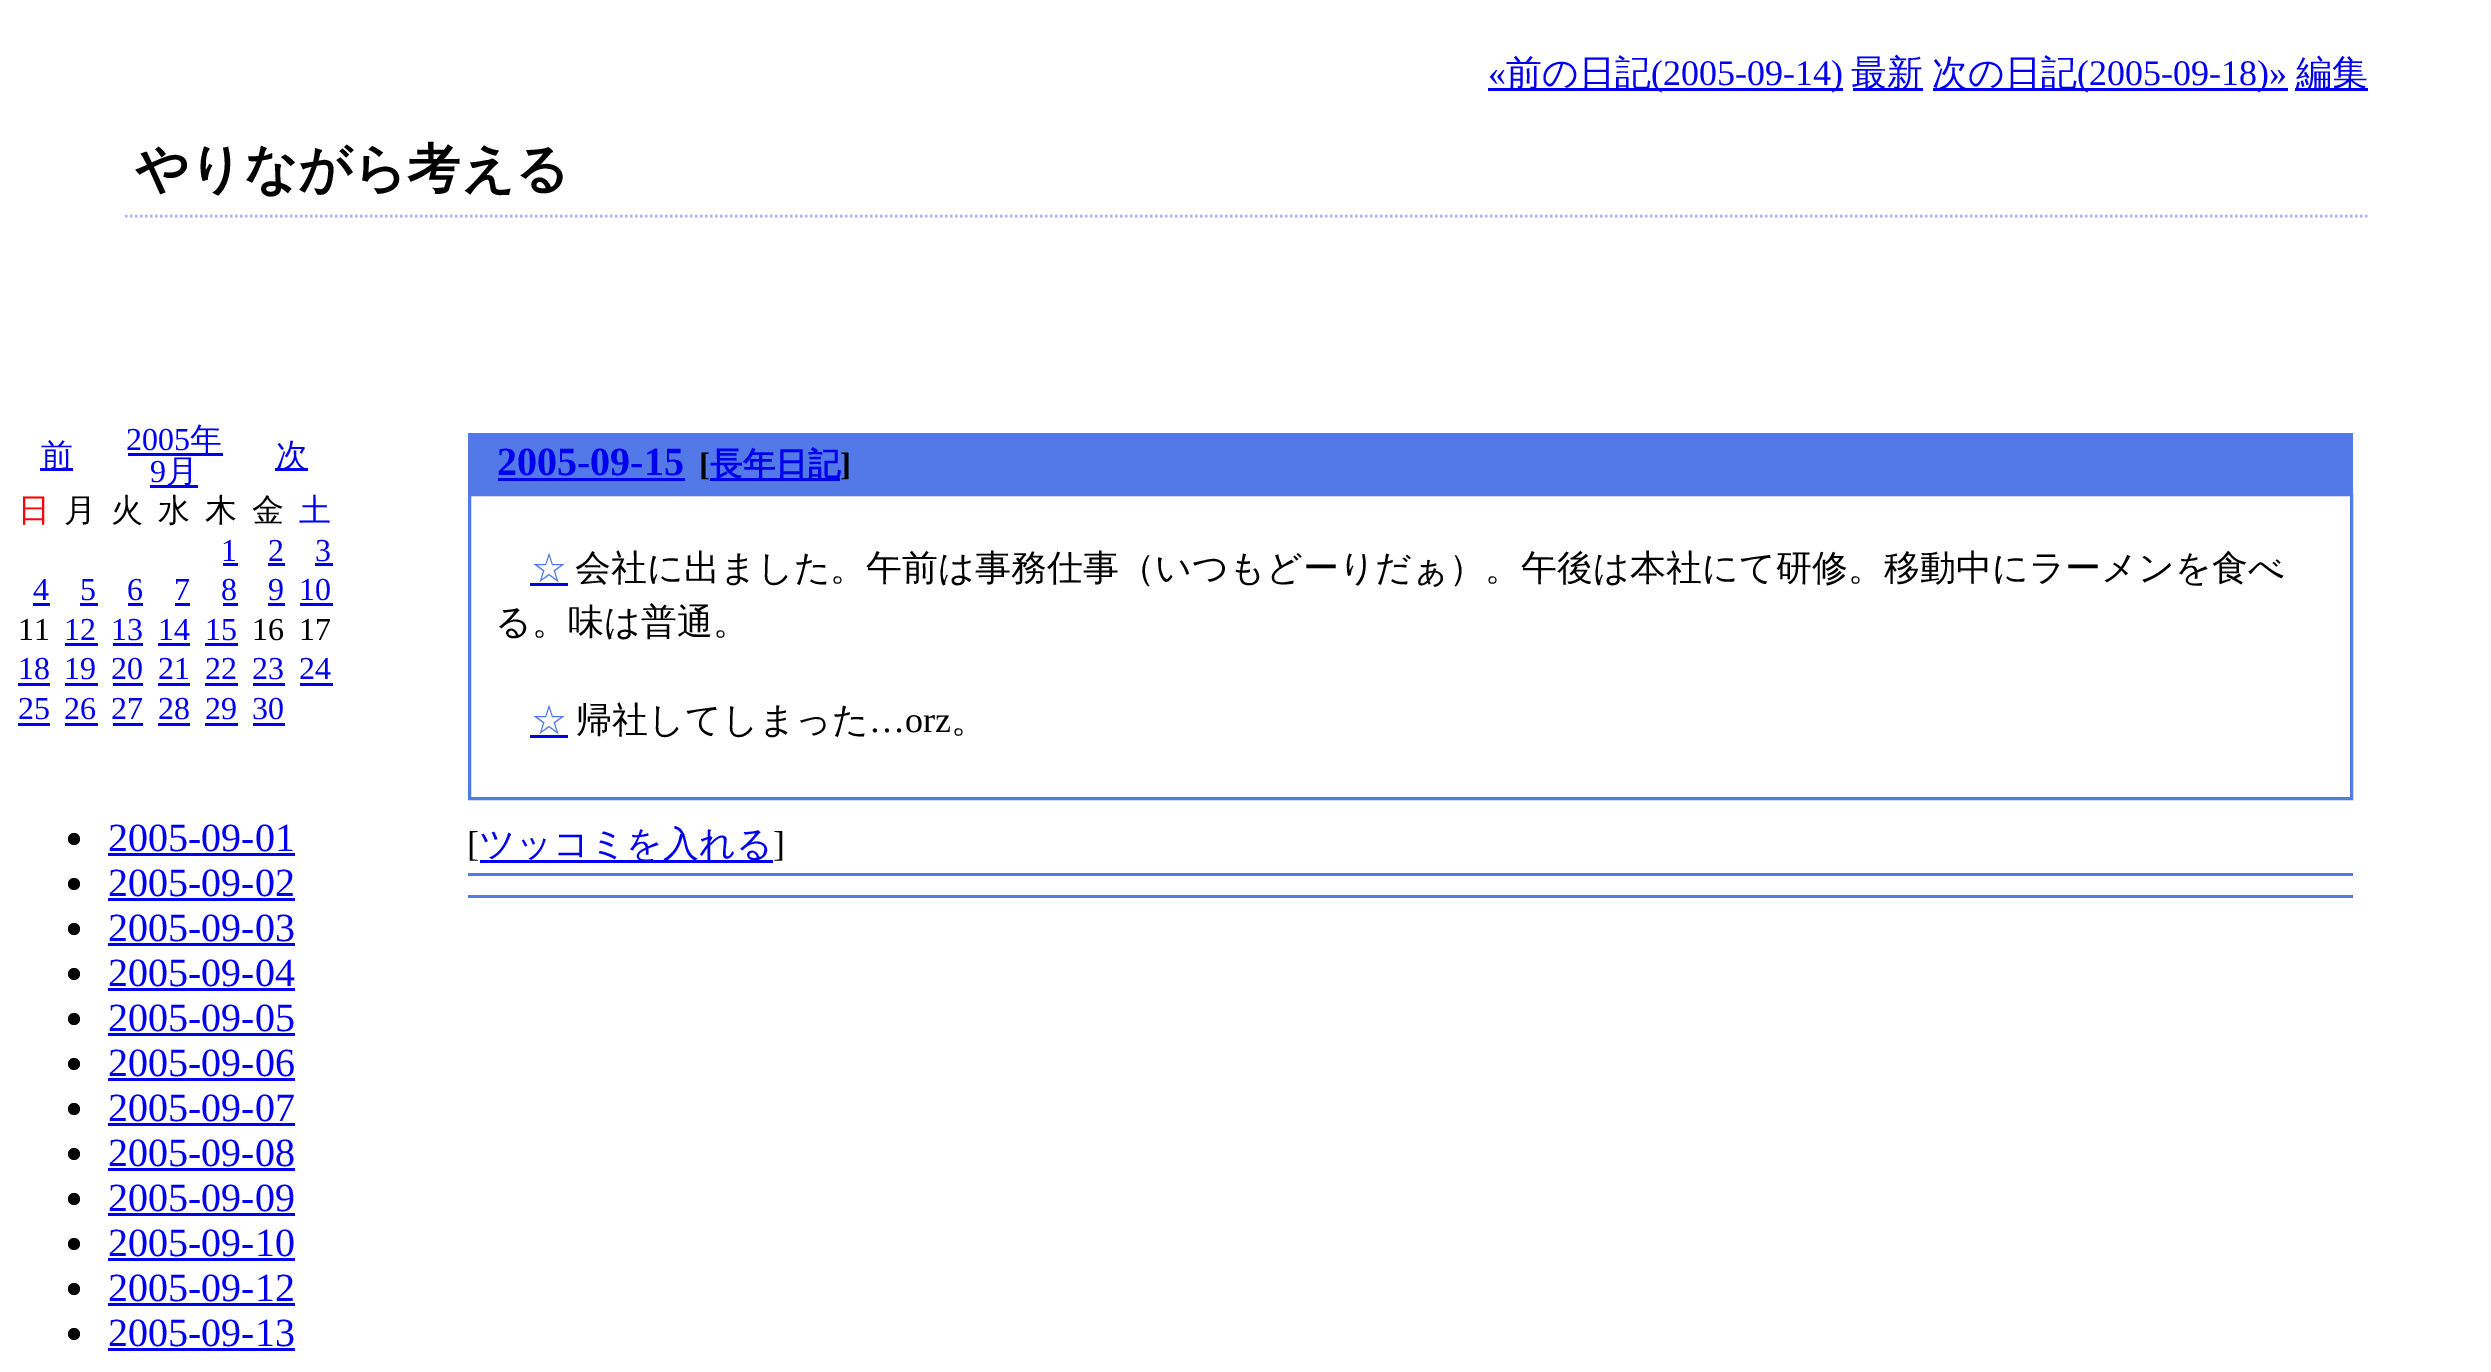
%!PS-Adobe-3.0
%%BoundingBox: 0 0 2491 1372
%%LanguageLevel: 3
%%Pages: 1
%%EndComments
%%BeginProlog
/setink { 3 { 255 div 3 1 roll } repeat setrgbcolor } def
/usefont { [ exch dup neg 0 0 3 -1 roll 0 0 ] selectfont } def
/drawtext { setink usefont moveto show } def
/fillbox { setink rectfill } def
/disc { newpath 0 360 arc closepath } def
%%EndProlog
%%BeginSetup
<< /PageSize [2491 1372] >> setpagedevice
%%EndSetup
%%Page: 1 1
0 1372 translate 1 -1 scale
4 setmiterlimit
0 0 2491 1372 255 255 255 fillbox
(«) 1488 85 /LiberationSerif-Regular 36 0 0 238 drawtext
1488 88 355 3 0 0 238 fillbox
(前の日記) 1506 85 /WenQuanYiZenHei-Medium 36 0 0 238 drawtext
(\(2005-09-14\)) 1651 85 /LiberationSerif-Regular 36 0 0 238 drawtext
1853 88 70 3 0 0 238 fillbox
(最新) 1851 85 /WenQuanYiZenHei-Medium 36 0 0 238 drawtext
1933 88 355 3 0 0 238 fillbox
(次の日記) 1932 85 /WenQuanYiZenHei-Medium 36 0 0 238 drawtext
(\(2005-09-18\)») 2077 85 /LiberationSerif-Regular 36 0 0 238 drawtext
2295 88 73 3 0 0 238 fillbox
(編集) 2296 85 /WenQuanYiZenHei-Medium 36 0 0 238 drawtext
173 178 255 setink
2.5 setlinewidth
[2.5 2.5] 0 setdash
125 216 moveto 2367.5 216 lineto stroke
(やりながら考える) 135 187 /WenQuanYiZenHei-Bold 53.25 0 0 0 drawtext
40 468 33 3 0 0 238 fillbox
(前) 41 466 /WenQuanYiZenHei-Medium 32 0 0 238 drawtext
(2005) 126 450 /LiberationSerif-Regular 32 0 0 238 drawtext
128 453 95 3 0 0 238 fillbox
(年) 190 450 /WenQuanYiZenHei-Medium 32 0 0 238 drawtext
(9) 150 482 /LiberationSerif-Regular 32 0 0 238 drawtext
150 485 48 3 0 0 238 fillbox
(月) 166 482 /WenQuanYiZenHei-Medium 32 0 0 238 drawtext
275 468 33 3 0 0 238 fillbox
(次) 276 466 /WenQuanYiZenHei-Medium 32 0 0 238 drawtext
(日) 18 521 /WenQuanYiZenHei-Medium 32 255 0 0 drawtext
(月) 64 521 /WenQuanYiZenHei-Medium 32 0 0 0 drawtext
(火) 111 521 /WenQuanYiZenHei-Medium 32 0 0 0 drawtext
(水) 158 521 /WenQuanYiZenHei-Medium 32 0 0 0 drawtext
(木) 205 521 /WenQuanYiZenHei-Medium 32 0 0 0 drawtext
(金) 252 521 /WenQuanYiZenHei-Medium 32 0 0 0 drawtext
(土) 299 521 /WenQuanYiZenHei-Medium 32 0 0 255 drawtext
(1) 221 561 /LiberationSerif-Regular 32 0 0 238 drawtext
223 563 15 3 0 0 238 fillbox
(2) 268 561 /LiberationSerif-Regular 32 0 0 238 drawtext
268 563 17 3 0 0 238 fillbox
(3) 315 561 /LiberationSerif-Regular 32 0 0 238 drawtext
315 563 18 3 0 0 238 fillbox
(4) 33 600 /LiberationSerif-Regular 32 0 0 238 drawtext
33 603 17 3 0 0 238 fillbox
(5) 80 600 /LiberationSerif-Regular 32 0 0 238 drawtext
80 603 18 3 0 0 238 fillbox
(6) 127 600 /LiberationSerif-Regular 32 0 0 238 drawtext
128 603 15 3 0 0 238 fillbox
(7) 174 600 /LiberationSerif-Regular 32 0 0 238 drawtext
175 603 15 3 0 0 238 fillbox
(8) 221 600 /LiberationSerif-Regular 32 0 0 238 drawtext
223 603 15 3 0 0 238 fillbox
(9) 268 600 /LiberationSerif-Regular 32 0 0 238 drawtext
268 603 17 3 0 0 238 fillbox
(10) 299 600 /LiberationSerif-Regular 32 0 0 238 drawtext
300 603 33 3 0 0 238 fillbox
(11) 18 640 /LiberationSerif-Regular 32 0 0 0 drawtext
(12) 64 640 /LiberationSerif-Regular 32 0 0 238 drawtext
65 643 33 3 0 0 238 fillbox
(13) 111 640 /LiberationSerif-Regular 32 0 0 238 drawtext
113 643 30 3 0 0 238 fillbox
(14) 158 640 /LiberationSerif-Regular 32 0 0 238 drawtext
158 643 32 3 0 0 238 fillbox
(15) 205 640 /LiberationSerif-Regular 32 0 0 238 drawtext
205 643 33 3 0 0 238 fillbox
(16) 252 640 /LiberationSerif-Regular 32 0 0 0 drawtext
(17) 299 640 /LiberationSerif-Regular 32 0 0 0 drawtext
(18) 18 679 /LiberationSerif-Regular 32 0 0 238 drawtext
18 683 32 3 0 0 238 fillbox
(19) 64 679 /LiberationSerif-Regular 32 0 0 238 drawtext
65 683 33 3 0 0 238 fillbox
(20) 111 679 /LiberationSerif-Regular 32 0 0 238 drawtext
113 683 30 3 0 0 238 fillbox
(21) 158 679 /LiberationSerif-Regular 32 0 0 238 drawtext
158 683 32 3 0 0 238 fillbox
(22) 205 679 /LiberationSerif-Regular 32 0 0 238 drawtext
205 683 33 3 0 0 238 fillbox
(23) 252 679 /LiberationSerif-Regular 32 0 0 238 drawtext
253 683 32 3 0 0 238 fillbox
(24) 299 679 /LiberationSerif-Regular 32 0 0 238 drawtext
300 683 33 3 0 0 238 fillbox
(25) 18 719 /LiberationSerif-Regular 32 0 0 238 drawtext
18 723 32 3 0 0 238 fillbox
(26) 64 719 /LiberationSerif-Regular 32 0 0 238 drawtext
65 723 33 3 0 0 238 fillbox
(27) 111 719 /LiberationSerif-Regular 32 0 0 238 drawtext
113 723 30 3 0 0 238 fillbox
(28) 158 719 /LiberationSerif-Regular 32 0 0 238 drawtext
158 723 32 3 0 0 238 fillbox
(29) 205 719 /LiberationSerif-Regular 32 0 0 238 drawtext
205 723 33 3 0 0 238 fillbox
(30) 252 719 /LiberationSerif-Regular 32 0 0 238 drawtext
253 723 32 3 0 0 238 fillbox
0 0 0 setink
74 839 6 disc fill
(2005-09-01) 108 851 /LiberationSerif-Regular 40 0 0 238 drawtext
108 853 187 3 0 0 238 fillbox
0 0 0 setink
74 884 6 disc fill
(2005-09-02) 108 896 /LiberationSerif-Regular 40 0 0 238 drawtext
108 898 187 3 0 0 238 fillbox
0 0 0 setink
74 929 6 disc fill
(2005-09-03) 108 941 /LiberationSerif-Regular 40 0 0 238 drawtext
108 943 187 3 0 0 238 fillbox
0 0 0 setink
74 974 6 disc fill
(2005-09-04) 108 986 /LiberationSerif-Regular 40 0 0 238 drawtext
108 988 187 3 0 0 238 fillbox
0 0 0 setink
74 1019 6 disc fill
(2005-09-05) 108 1031 /LiberationSerif-Regular 40 0 0 238 drawtext
108 1033 187 3 0 0 238 fillbox
0 0 0 setink
74 1064 6 disc fill
(2005-09-06) 108 1076 /LiberationSerif-Regular 40 0 0 238 drawtext
108 1078 187 3 0 0 238 fillbox
0 0 0 setink
74 1109 6 disc fill
(2005-09-07) 108 1121 /LiberationSerif-Regular 40 0 0 238 drawtext
108 1123 187 3 0 0 238 fillbox
0 0 0 setink
74 1154 6 disc fill
(2005-09-08) 108 1166 /LiberationSerif-Regular 40 0 0 238 drawtext
108 1168 187 3 0 0 238 fillbox
0 0 0 setink
74 1199 6 disc fill
(2005-09-09) 108 1211 /LiberationSerif-Regular 40 0 0 238 drawtext
108 1213 187 3 0 0 238 fillbox
0 0 0 setink
74 1244 6 disc fill
(2005-09-10) 108 1256 /LiberationSerif-Regular 40 0 0 238 drawtext
108 1258 187 3 0 0 238 fillbox
0 0 0 setink
74 1289 6 disc fill
(2005-09-12) 108 1301 /LiberationSerif-Regular 40 0 0 238 drawtext
108 1303 187 3 0 0 238 fillbox
0 0 0 setink
74 1334 6 disc fill
(2005-09-13) 108 1346 /LiberationSerif-Regular 40 0 0 238 drawtext
108 1348 187 3 0 0 238 fillbox
468 433 1885 60 82 121 231 fillbox
(2005-09-15) 497 475 /LiberationSerif-Bold 40 0 0 238 drawtext
498 478 187 3 0 0 238 fillbox
([) 699 475 /LiberationSerif-Bold 32.5 0 0 0 drawtext
710 478 130 3 0 0 238 fillbox
(長年日記) 710 475 /WenQuanYiZenHei-Bold 32.5 0 0 238 drawtext
(]) 840 475 /LiberationSerif-Bold 32.5 0 0 0 drawtext
82 121 231 setink
3 setlinewidth
[] 0 setdash
469.5 494.5 1882 304 rectstroke
(☆) 531 580 /WenQuanYiZenHei-Medium 36 82 121 231 drawtext
530 583 38 3 0 0 238 fillbox
(会社に出ました。午前は事務仕事（いつもどーりだぁ）。午後は本社にて研修。移動中にラーメンを食べ) 575 580 /WenQuanYiZenHei-Medium 36 0 0 0 drawtext
(る。味は普通。) 495 634 /WenQuanYiZenHei-Medium 36 0 0 0 drawtext
(☆) 531 732 /WenQuanYiZenHei-Medium 36 82 121 231 drawtext
530 735 38 3 0 0 238 fillbox
(帰社してしまった) 576 732 /WenQuanYiZenHei-Medium 36 0 0 0 drawtext
(…orz) 869 732 /LiberationSerif-Regular 36 0 0 0 drawtext
(。) 951 732 /WenQuanYiZenHei-Medium 36 0 0 0 drawtext
468 873 1885 3 82 121 231 fillbox
([) 467 856 /LiberationSerif-Regular 36 0 0 0 drawtext
480 860 293 3 0 0 238 fillbox
(ツッコミを入れる) 479 856 /WenQuanYiZenHei-Medium 36 0 0 238 drawtext
(]) 773 856 /LiberationSerif-Regular 36 0 0 0 drawtext
468 895 1885 3 82 121 231 fillbox
showpage
%%EOF
